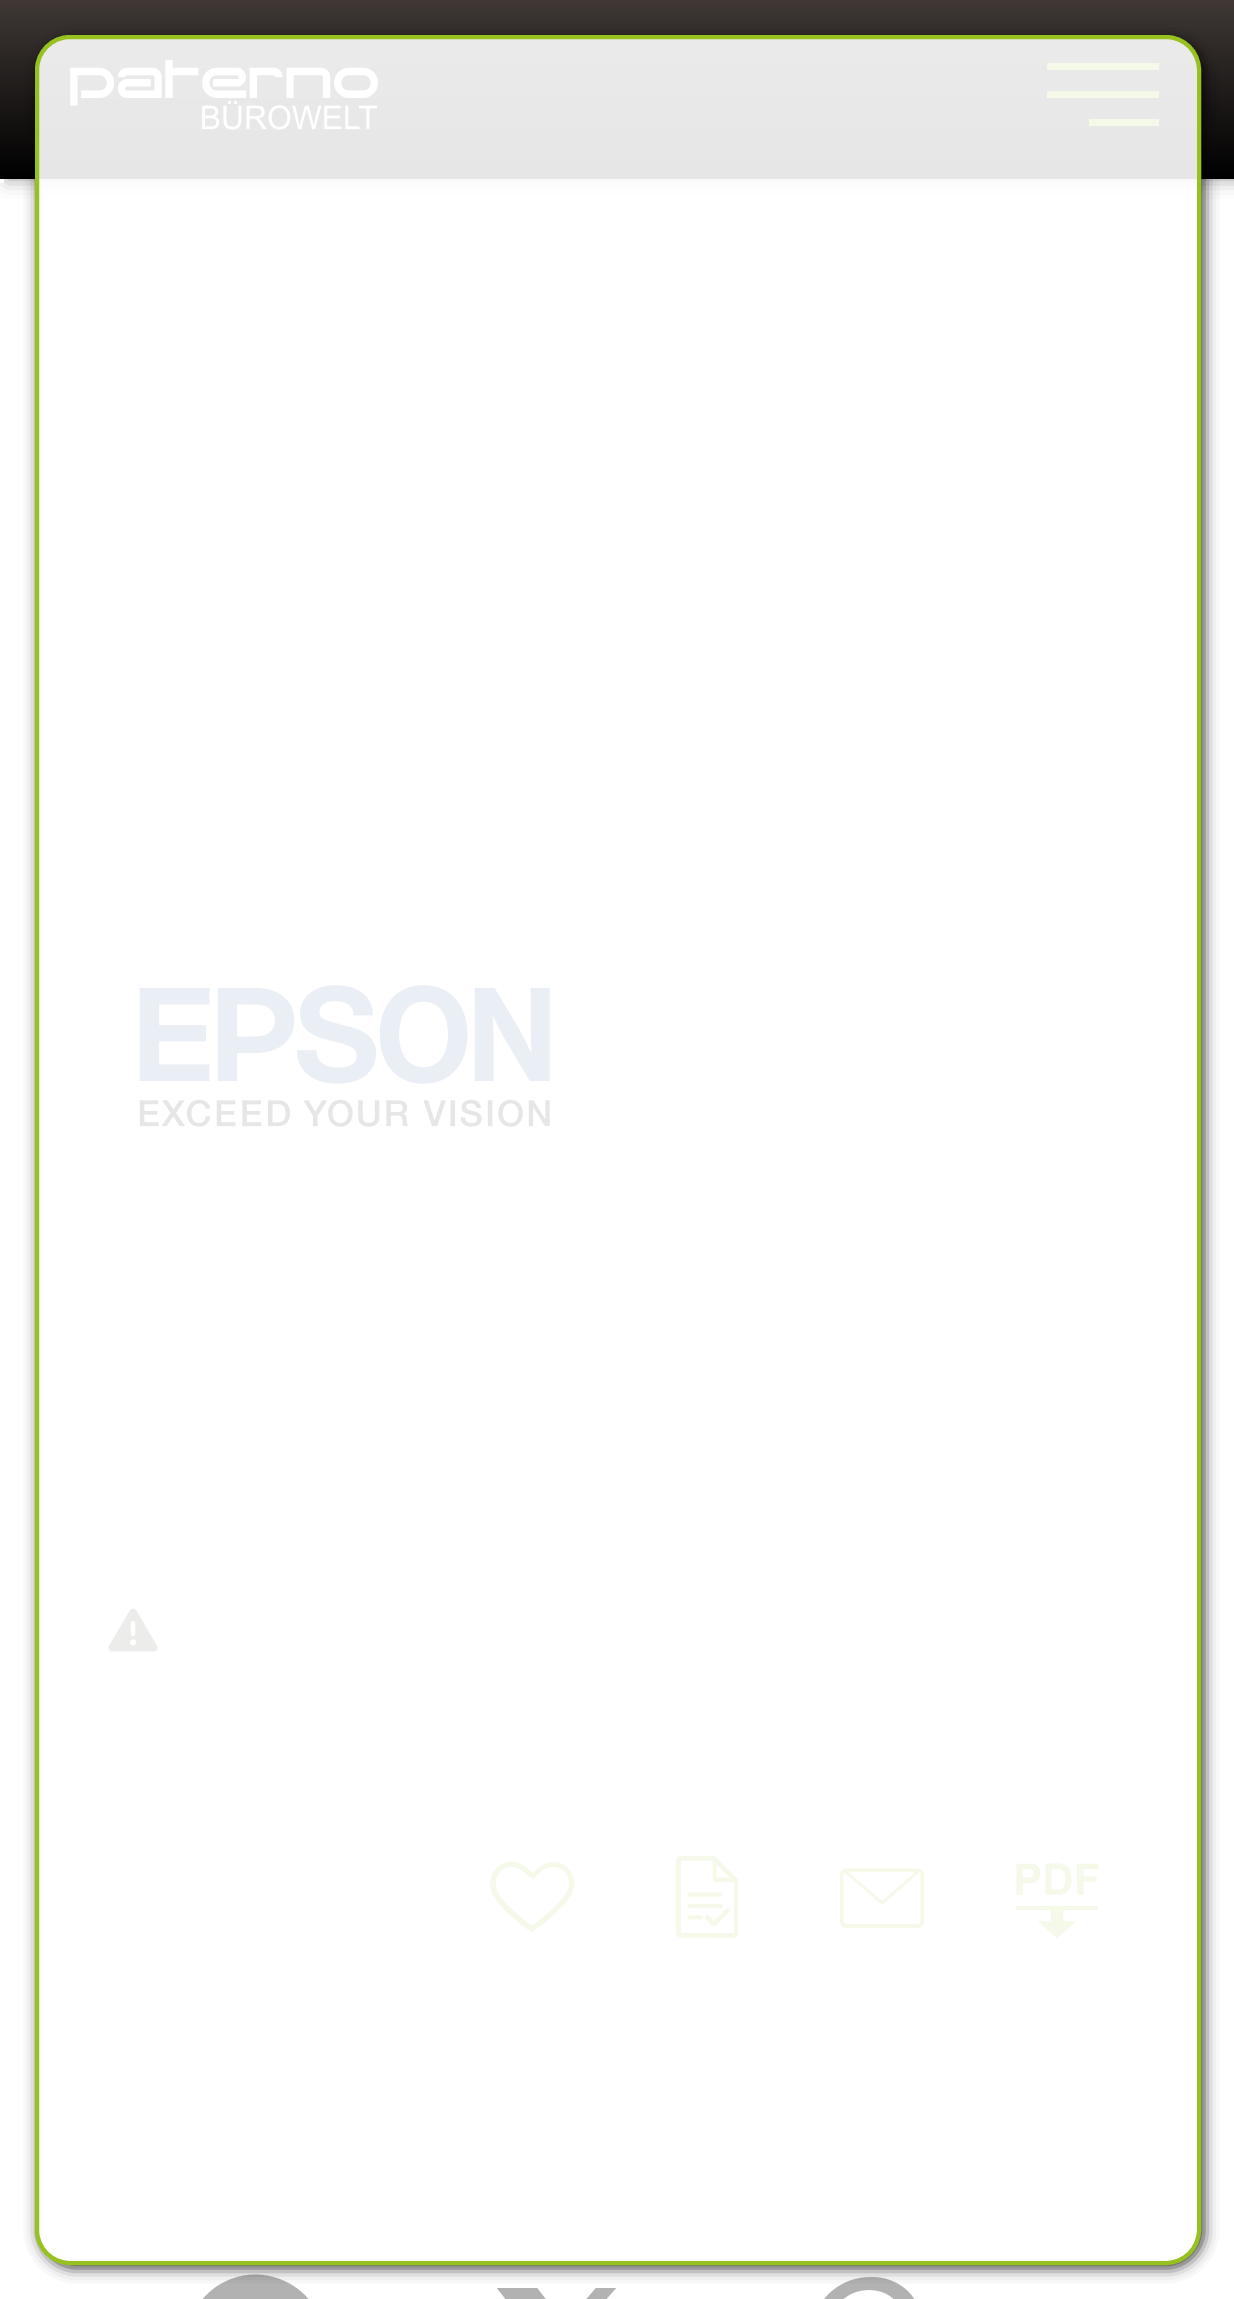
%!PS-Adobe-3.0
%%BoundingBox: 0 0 1234 2299
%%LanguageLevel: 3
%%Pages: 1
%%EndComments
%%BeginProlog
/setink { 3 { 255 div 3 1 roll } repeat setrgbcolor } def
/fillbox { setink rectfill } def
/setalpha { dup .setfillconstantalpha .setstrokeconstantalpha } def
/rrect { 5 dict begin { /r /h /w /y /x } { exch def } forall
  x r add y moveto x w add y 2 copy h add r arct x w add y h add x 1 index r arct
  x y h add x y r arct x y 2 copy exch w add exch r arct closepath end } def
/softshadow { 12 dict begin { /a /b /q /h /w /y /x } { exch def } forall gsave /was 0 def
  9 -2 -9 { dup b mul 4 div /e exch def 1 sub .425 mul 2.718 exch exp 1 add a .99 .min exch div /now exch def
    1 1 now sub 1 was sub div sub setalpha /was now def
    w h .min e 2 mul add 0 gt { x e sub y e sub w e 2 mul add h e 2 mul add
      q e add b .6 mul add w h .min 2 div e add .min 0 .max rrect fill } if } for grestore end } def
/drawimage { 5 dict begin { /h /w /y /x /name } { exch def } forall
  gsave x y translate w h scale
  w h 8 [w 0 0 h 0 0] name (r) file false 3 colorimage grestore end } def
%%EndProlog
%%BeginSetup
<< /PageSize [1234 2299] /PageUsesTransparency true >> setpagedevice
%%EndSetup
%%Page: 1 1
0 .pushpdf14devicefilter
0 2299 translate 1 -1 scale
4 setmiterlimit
0 0 1234 2299 255 255 255 fillbox
0 0 0 setink
7 0 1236 179 0 9 0.4 softshadow
gsave 0 0 moveto 1234 0 lineto 1234 179 lineto 0 179 lineto closepath clip newpath
<< /ShadingType 2 /ColorSpace /DeviceRGB /Coords [618 0 618 179] /Extend [true true] /Function << /FunctionType 2 /Domain [0 1] /C0 [0.251 0.224 0.212] /C1 [0 0 0] /N 1 >> >> shfill grestore
(assets/img1.rgb) 70 60 308 70 drawimage
1047 63 112 7 150 193 31 fillbox
1047 91 112 7 150 193 31 fillbox
1089 119 70 7 150 193 31 fillbox
(assets/img2.rgb) 139 985 411 142 drawimage
(assets/img3.rgb) 108 1608 50 44 drawimage
(assets/img4.rgb) 490 1861 85 72 drawimage
(assets/img5.rgb) 675 1856 64 82 drawimage
(assets/img6.rgb) 840 1868 84 61 drawimage
(assets/img7.rgb) 1016 1863 83 76 drawimage
178 178 178 setink
326 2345 moveto 325 2289 263 2255 216 2287 curveto 205 2295 196 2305 191 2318 curveto 184 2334 184 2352 190 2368 curveto 197 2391 216 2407 239 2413 curveto 239 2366 lineto 224 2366 lineto 224 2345 lineto 239 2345 lineto 239 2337 238 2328 241 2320 curveto 247 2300 270 2299 288 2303 curveto 288 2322 lineto 266 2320 264 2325 264 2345 curveto 287 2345 lineto 283 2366 lineto 264 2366 lineto 264 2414 lineto 300 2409 325 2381 326 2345 curveto closepath fill
596 2288 moveto 616 2288 lineto 596 2288 lineto 616 2288 lineto 574 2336 lineto 623 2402 lineto 584 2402 lineto 554 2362 lineto 519 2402 lineto 500 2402 lineto 545 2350 lineto 497 2288 lineto 537 2288 lineto 565 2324 lineto closepath 590 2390 moveto 600 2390 lineto 590 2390 lineto 600 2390 lineto 531 2299 lineto 520 2299 lineto closepath fill
(assets/img8.rgb) 824 2276 90 23 drawimage
0 179 4 4 255 255 255 fillbox
gsave
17 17 moveto 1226 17 lineto 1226 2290 lineto 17 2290 lineto closepath 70 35 moveto 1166 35 lineto 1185.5 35 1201 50.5 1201 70 curveto 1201 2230 lineto 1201 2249.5 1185.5 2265 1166 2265 curveto 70 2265 lineto 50.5 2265 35 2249.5 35 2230 curveto 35 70 lineto 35 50.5 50.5 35 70 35 curveto closepath eoclip newpath
0 0 0 setink
39 39 1165 2229 35 7 0.8 softshadow
grestore
0.9 setalpha
37 37 1162 2226 33 rrect fill
1 setalpha
150 193 31 setink
4 setlinewidth
37 37 1162 2226 33 rrect stroke
.poppdf14devicefilter showpage
%%EOF
